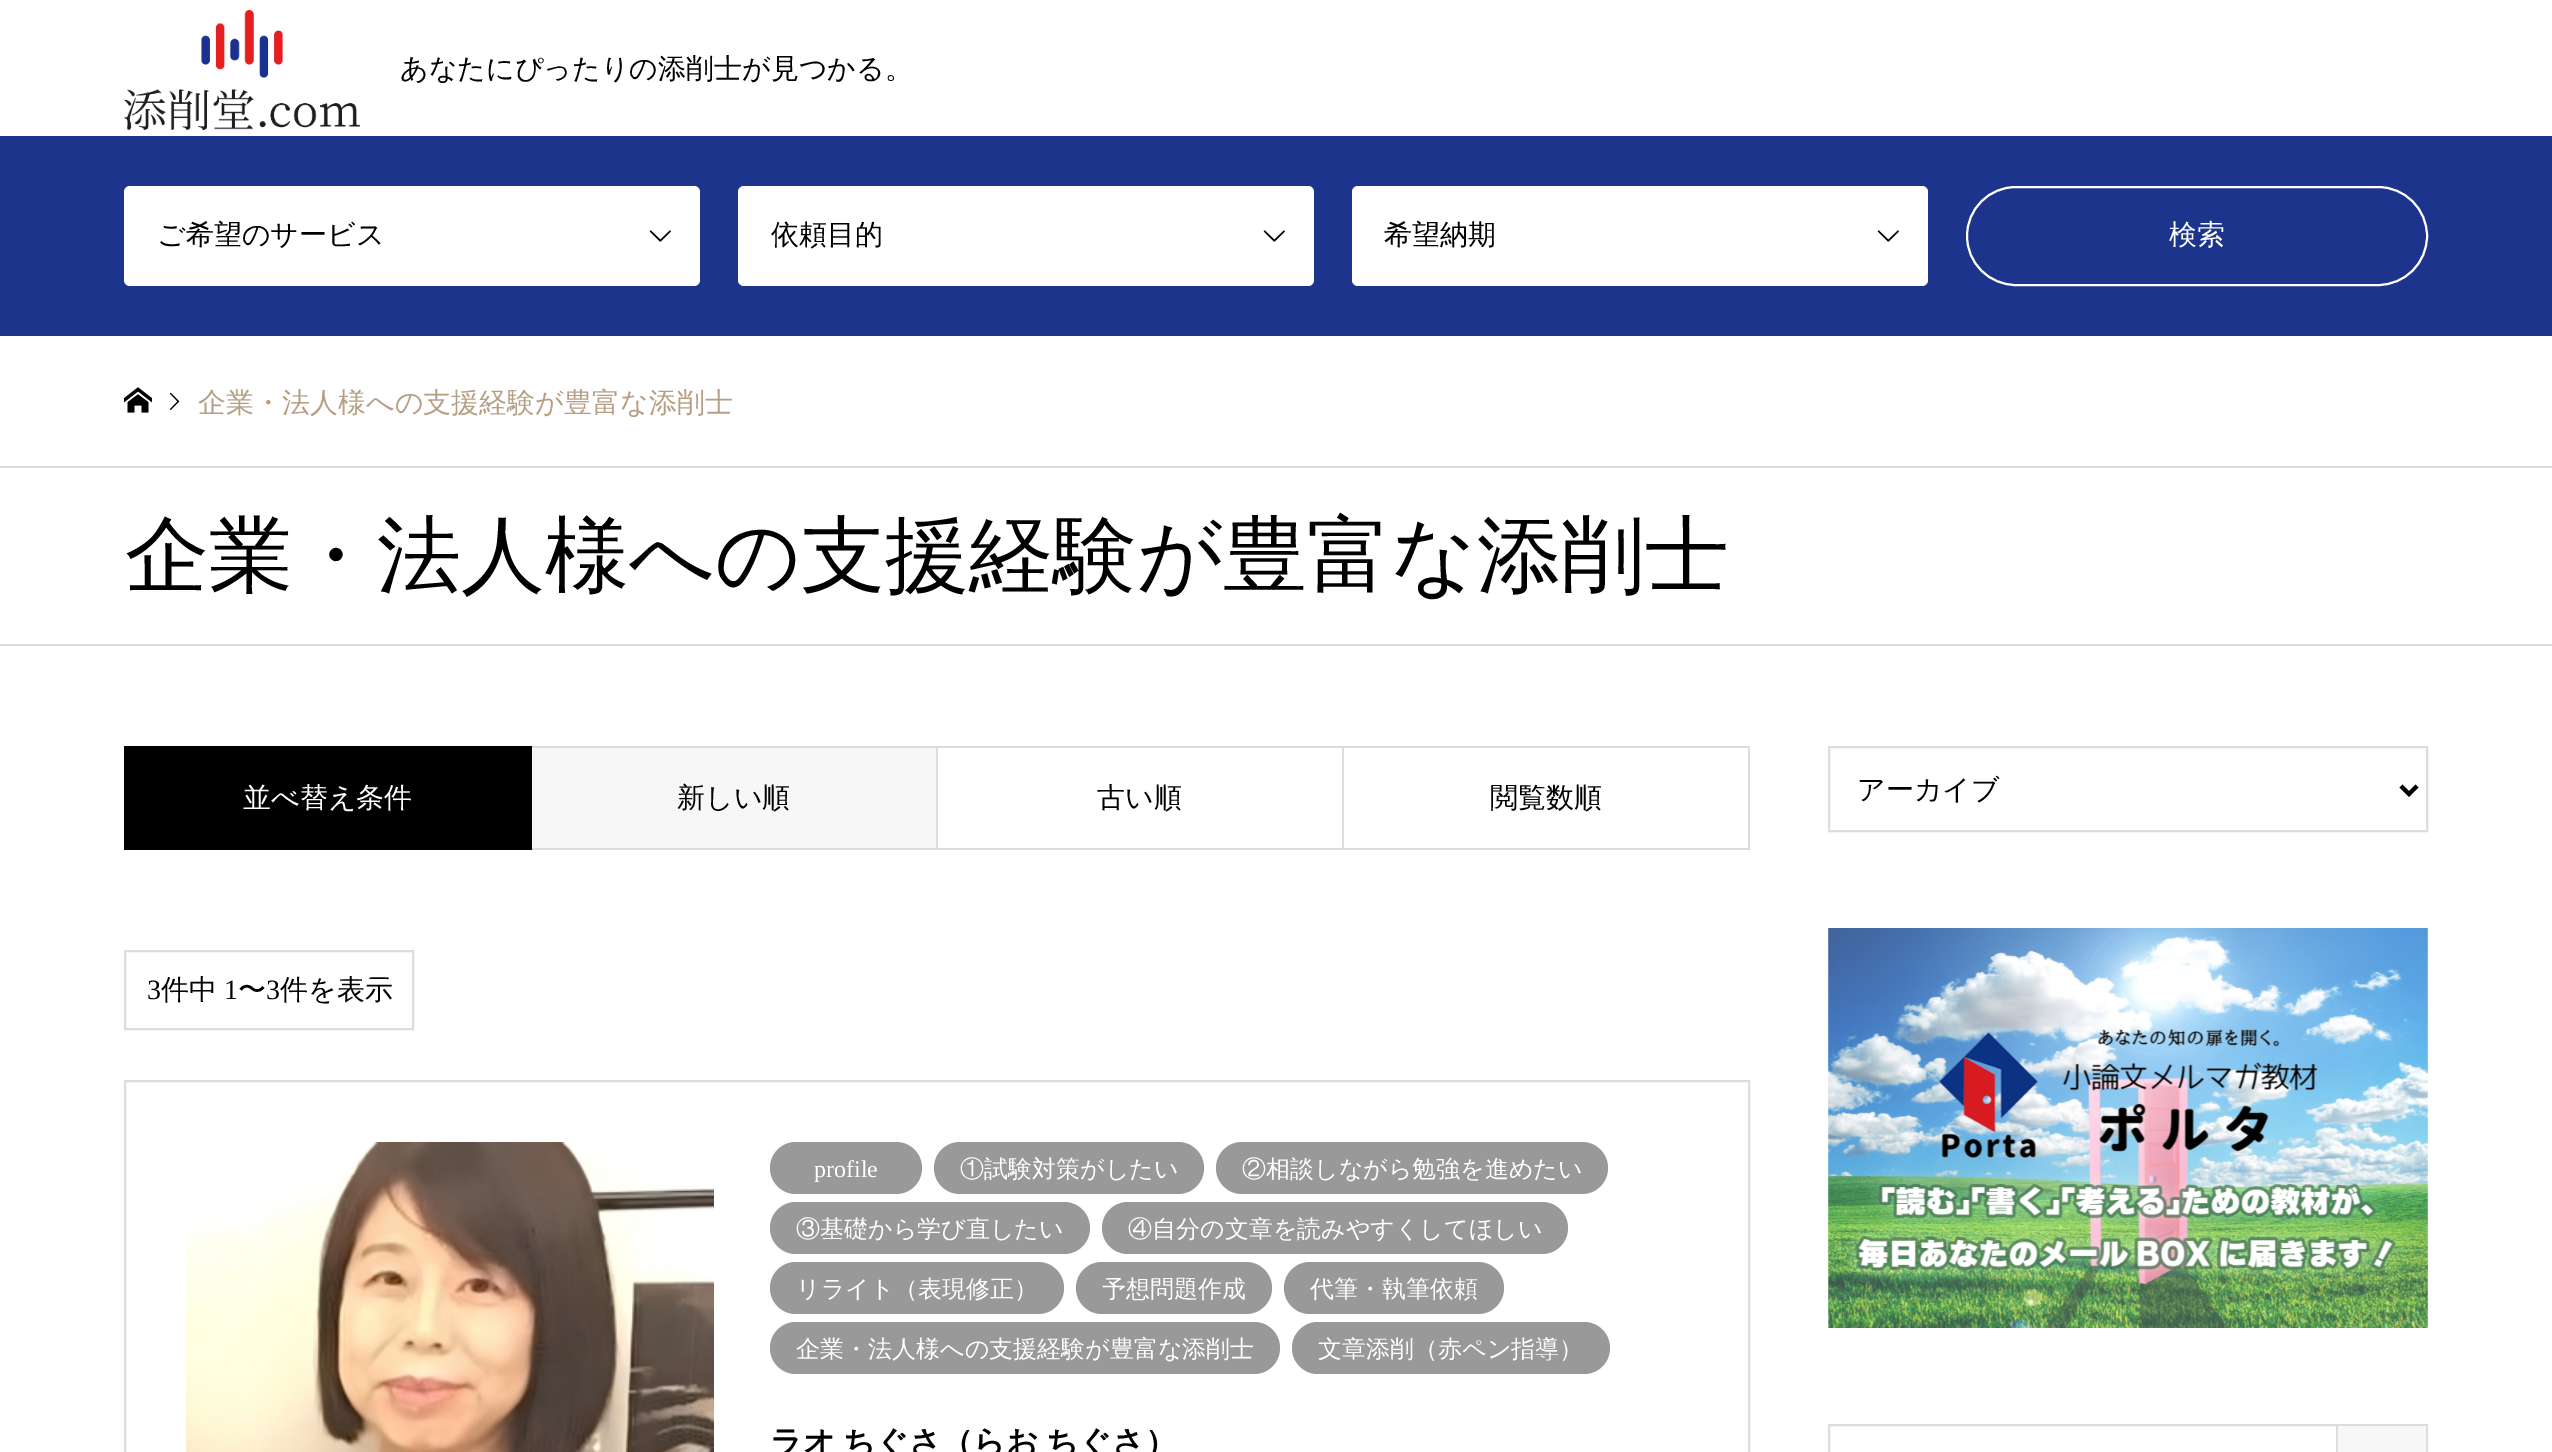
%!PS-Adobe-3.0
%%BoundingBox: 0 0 2552 1452
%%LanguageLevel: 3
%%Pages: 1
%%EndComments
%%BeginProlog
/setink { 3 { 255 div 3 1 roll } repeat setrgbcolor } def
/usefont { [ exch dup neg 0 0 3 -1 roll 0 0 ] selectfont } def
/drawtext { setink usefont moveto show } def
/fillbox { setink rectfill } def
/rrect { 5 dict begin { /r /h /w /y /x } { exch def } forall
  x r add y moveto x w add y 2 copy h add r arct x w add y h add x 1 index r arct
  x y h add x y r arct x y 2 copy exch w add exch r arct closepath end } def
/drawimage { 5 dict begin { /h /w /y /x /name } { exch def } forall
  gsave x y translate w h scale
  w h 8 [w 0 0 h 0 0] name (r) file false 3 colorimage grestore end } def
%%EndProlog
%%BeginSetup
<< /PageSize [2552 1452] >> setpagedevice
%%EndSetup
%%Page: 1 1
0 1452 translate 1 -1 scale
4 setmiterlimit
0 0 2552 1452 255 255 255 fillbox
(assets/img1.rgb) 124 10 236 120 drawimage
(あなたにぴったりの添削士が見つかる。) 400 78 /WenQuanYiZenHei-Medium 28 0 0 0 drawtext
0 136 2552 200 28 52 140 fillbox
255 255 255 setink
124 186 576 100 6 rrect fill
(ご希望のサービス) 157 244 /WenQuanYiZenHei-Medium 28 0 0 0 drawtext
(assets/img2.rgb) 649 230 22 12 drawimage
255 255 255 setink
738 186 576 100 6 rrect fill
(依頼目的) 771 244 /WenQuanYiZenHei-Medium 28 0 0 0 drawtext
(assets/img2.rgb) 1263 230 22 12 drawimage
255 255 255 setink
1352 186 576 100 6 rrect fill
(希望納期) 1384 244 /WenQuanYiZenHei-Medium 28 0 0 0 drawtext
(assets/img2.rgb) 1877 230 22 12 drawimage
255 255 255 setink
2 setlinewidth
1967 187 460 98 49 rrect stroke
(検索) 2169 244 /WenQuanYiZenHei-Medium 28 255 255 255 drawtext
0 466 2552 2 221 221 221 fillbox
(assets/img3.rgb) 124 387 28 26 drawimage
(assets/img4.rgb) 169 392 11 18 drawimage
(企業・法人様への支援経験が豊富な添削士) 198 412 /WenQuanYiZenHei-Medium 28 182 158 132 drawtext
0 644 2552 2 221 221 221 fillbox
(企業・法人様への支援経験が豊富な添削士) 125 584 /WenQuanYiZenHei-Medium 84 0 0 0 drawtext
124 746 408 104 0 0 0 fillbox
(並べ替え条件) 243 807 /WenQuanYiZenHei-Medium 28 255 255 255 drawtext
532 748 404 100 247 247 247 fillbox
532 746 1218 2 221 221 221 fillbox
936 746 2 104 221 221 221 fillbox
532 848 406 2 221 221 221 fillbox
(新しい順) 677 807 /WenQuanYiZenHei-Medium 28 0 0 0 drawtext
1342 746 2 104 221 221 221 fillbox
938 848 406 2 221 221 221 fillbox
(古い順) 1097 807 /WenQuanYiZenHei-Medium 28 0 0 0 drawtext
1748 746 2 104 221 221 221 fillbox
1344 848 406 2 221 221 221 fillbox
(閲覧数順) 1490 807 /WenQuanYiZenHei-Medium 28 0 0 0 drawtext
221 221 221 setink
125 951 288 78 rectstroke
(3) 147 999 /LiberationSerif-Regular 28 0 0 0 drawtext
(件中) 161 999 /WenQuanYiZenHei-Medium 28 0 0 0 drawtext
(1) 224 999 /LiberationSerif-Regular 28 0 0 0 drawtext
(〜) 238 999 /WenQuanYiZenHei-Medium 28 0 0 0 drawtext
(3) 266 999 /LiberationSerif-Regular 28 0 0 0 drawtext
(件を表示) 280 999 /WenQuanYiZenHei-Medium 28 0 0 0 drawtext
221 221 221 setink
125 1081 1624 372 rectstroke
(assets/img5.rgb) 186 1142 528 310 drawimage
153 153 153 setink
770 1142 152 52 26 rrect fill
(profile) 814 1177 /LiberationSerif-Regular 24 255 255 255 drawtext
153 153 153 setink
934 1142 270 52 26 rrect fill
(①試験対策がしたい) 960 1177 /WenQuanYiZenHei-Medium 24 255 255 255 drawtext
153 153 153 setink
1216 1142 392 52 26 rrect fill
(②相談しながら勉強を進めたい) 1242 1177 /WenQuanYiZenHei-Medium 24 255 255 255 drawtext
153 153 153 setink
770 1202 320 52 26 rrect fill
(③基礎から学び直したい) 796 1237 /WenQuanYiZenHei-Medium 24 255 255 255 drawtext
153 153 153 setink
1102 1202 466 52 26 rrect fill
(④自分の文章を読みやすくしてほしい) 1128 1237 /WenQuanYiZenHei-Medium 24 255 255 255 drawtext
153 153 153 setink
770 1262 294 52 26 rrect fill
(リライト（表現修正）) 796 1297 /WenQuanYiZenHei-Medium 24 255 255 255 drawtext
153 153 153 setink
1076 1262 196 52 26 rrect fill
(予想問題作成) 1102 1297 /WenQuanYiZenHei-Medium 24 255 255 255 drawtext
153 153 153 setink
1284 1262 220 52 26 rrect fill
(代筆・執筆依頼) 1310 1297 /WenQuanYiZenHei-Medium 24 255 255 255 drawtext
153 153 153 setink
770 1322 510 52 26 rrect fill
(企業・法人様への支援経験が豊富な添削士) 796 1357 /WenQuanYiZenHei-Medium 24 255 255 255 drawtext
153 153 153 setink
1292 1322 318 52 26 rrect fill
(文章添削（赤ペン指導）) 1318 1357 /WenQuanYiZenHei-Medium 24 255 255 255 drawtext
/WenQuanYiZenHei-Bold 32 usefont
0 0 0 setink
770 1453 moveto -2 0 32 (ラオ ちぐさ（らお ちぐさ）) widthshow
221 221 221 setink
1829 747 598 84 rectstroke
0 0 0 setink
4 setlinewidth
2401 786 moveto 2409 794 lineto 2417 786 lineto stroke
(アーカイブ) 1857 799 /WenQuanYiZenHei-Medium 28 0 0 0 drawtext
(assets/img6.rgb) 1828 928 600 400 drawimage
221 221 221 setink
2 setlinewidth
1829 1425 508 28 rectstroke
2338 1426 88 26 247 247 247 fillbox
2338 1424 90 2 221 221 221 fillbox
2426 1424 2 28 221 221 221 fillbox
showpage
%%EOF
